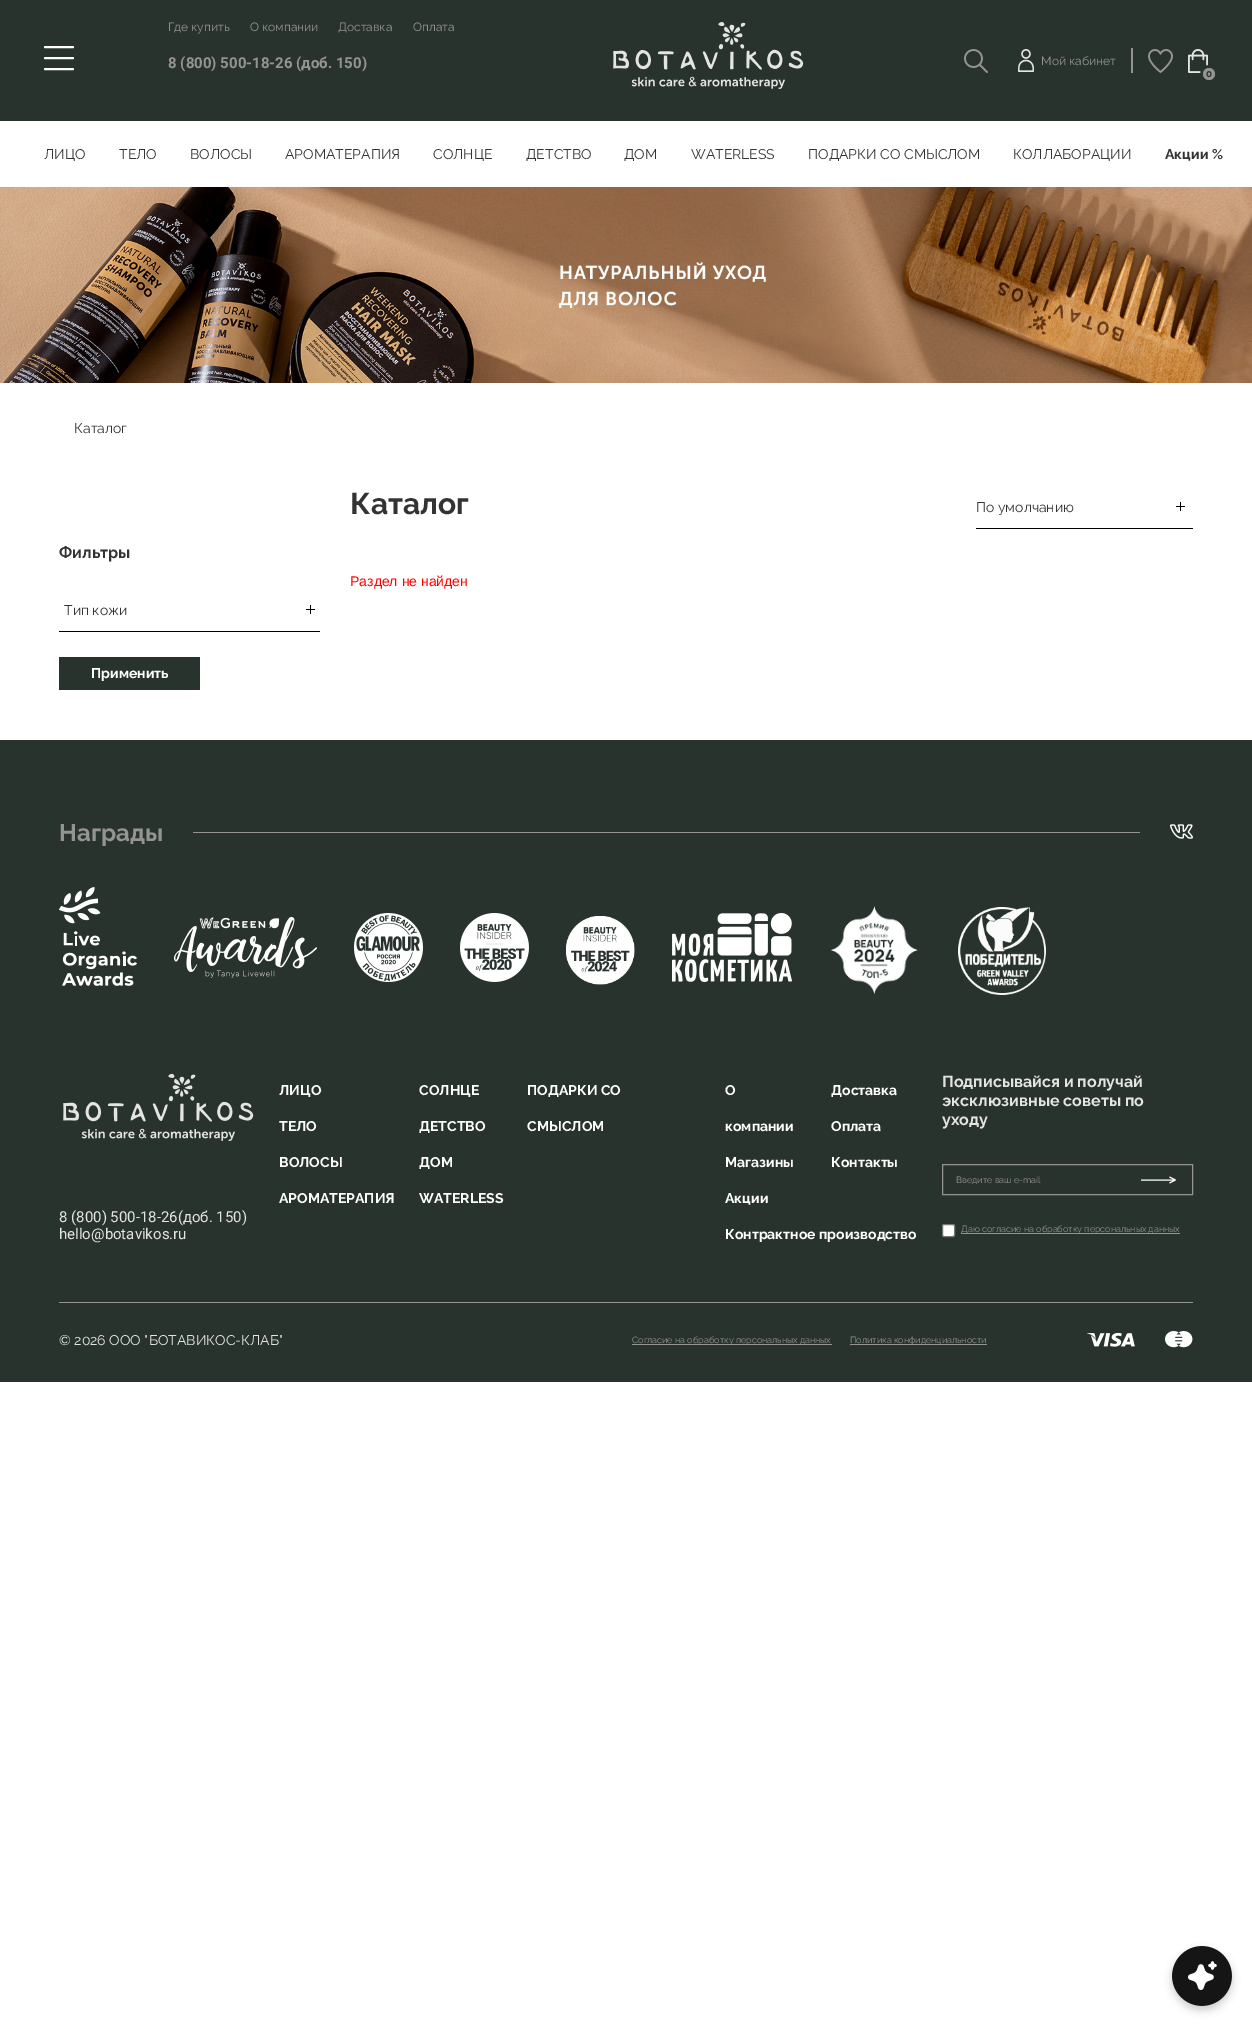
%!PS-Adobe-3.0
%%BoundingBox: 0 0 1252 2026
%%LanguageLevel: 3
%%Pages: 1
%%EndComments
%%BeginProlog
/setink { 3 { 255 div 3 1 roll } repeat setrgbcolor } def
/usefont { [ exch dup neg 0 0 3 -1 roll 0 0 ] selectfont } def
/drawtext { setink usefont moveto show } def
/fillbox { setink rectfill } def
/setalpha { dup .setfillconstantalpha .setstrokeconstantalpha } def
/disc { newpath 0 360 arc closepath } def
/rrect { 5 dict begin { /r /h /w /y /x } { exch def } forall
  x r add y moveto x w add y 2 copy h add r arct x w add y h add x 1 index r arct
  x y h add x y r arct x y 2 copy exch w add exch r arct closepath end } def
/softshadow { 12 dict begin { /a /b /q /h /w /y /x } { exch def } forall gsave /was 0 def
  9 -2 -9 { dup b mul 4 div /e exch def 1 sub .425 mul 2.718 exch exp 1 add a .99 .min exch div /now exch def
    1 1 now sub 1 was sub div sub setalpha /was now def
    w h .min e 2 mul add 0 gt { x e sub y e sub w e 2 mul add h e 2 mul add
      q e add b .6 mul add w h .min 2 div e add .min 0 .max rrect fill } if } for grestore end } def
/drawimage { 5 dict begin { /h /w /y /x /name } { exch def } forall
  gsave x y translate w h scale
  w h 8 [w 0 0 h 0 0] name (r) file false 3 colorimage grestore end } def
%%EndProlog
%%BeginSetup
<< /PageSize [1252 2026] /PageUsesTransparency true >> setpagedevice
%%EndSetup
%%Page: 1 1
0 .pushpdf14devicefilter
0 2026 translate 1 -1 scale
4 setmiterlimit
0 0 1252 2026 255 255 255 fillbox
0 0 1252 121 41 51 45 fillbox
255 255 255 setink
2 setlinewidth
1 setlinecap
1 setlinejoin
45 47 moveto 73 47 lineto 45 58 moveto 73 58 lineto 45 69 moveto 73 69 lineto stroke
(Где купить) 168 31 /Raleway-Regular 12 148 148 148 drawtext
(О компании) 250 31 /Raleway-Regular 12 148 148 148 drawtext
(Доставка) 338 31 /Raleway-Regular 12 148 148 148 drawtext
(Оплата) 413 31 /Raleway-Regular 12 148 148 148 drawtext
(8 \(800\) 500-18-26 \(доб. 150\)) 168 68 /Roboto-Bold 15 148 148 148 drawtext
(assets/img1.rgb) 613 22 191 67 drawimage
(assets/img2.rgb) 964 49 24 24 drawimage
(assets/img3.rgb) 1018 49 16 23 drawimage
(Мой кабинет) 1041 65 /Raleway-Regular 12 148 148 148 drawtext
1131 48 2 25 148 148 148 fillbox
(assets/img4.rgb) 1148 49 25 24 drawimage
(assets/img5.rgb) 1188 49 20 24 drawimage
1209 74 6 disc fill
(0) 1206 77 /Raleway-Bold 10 41 51 45 drawtext
(ЛИЦО) 44 159 /Raleway-Regular 14 51 51 51 drawtext
(ТЕЛО) 119 159 /Raleway-Regular 14 51 51 51 drawtext
(ВОЛОСЫ) 190 159 /Raleway-Regular 14 51 51 51 drawtext
(АРОМАТЕРАПИЯ) 285 159 /Raleway-Regular 14 51 51 51 drawtext
(СОЛНЦЕ) 433 159 /Raleway-Regular 14 51 51 51 drawtext
(ДЕТСТВО) 526 159 /Raleway-Regular 14 51 51 51 drawtext
(ДОМ) 624 159 /Raleway-Regular 14 51 51 51 drawtext
(WATERLESS) 691 159 /Raleway-Regular 14 51 51 51 drawtext
(ПОДАРКИ СО СМЫСЛОМ) 808 159 /Raleway-Regular 14 51 51 51 drawtext
(КОЛЛАБОРАЦИИ) 1013 159 /Raleway-Regular 14 51 51 51 drawtext
(Акции) 1165 159 /Raleway-Bold 14 51 51 51 drawtext
(%) 1212 159 /Raleway-Bold 14 51 51 51 drawtext
(assets/img6.rgb) 0 187 1252 196 drawimage
(Каталог) 74 433 /Raleway-Regular 14 51 51 51 drawtext
(Каталог) 350 514 /Raleway-Bold 30 51 51 51 drawtext
976 528 217 1 0 0 0 fillbox
(По умолчанию) 976 512 /Raleway-Regular 14 51 51 51 drawtext
1176 506 9 1 0 0 0 fillbox
1180 502 1 9 0 0 0 fillbox
(Фильтры) 59 558 /Raleway-Bold 16 51 51 51 drawtext
59 631 261 1 0 0 0 fillbox
(Тип кожи) 64 615 /Raleway-Regular 14 51 51 51 drawtext
306 609 9 1 0 0 0 fillbox
310 605 1 9 0 0 0 fillbox
59 657 141 33 41 51 45 fillbox
(Применить) 91 678 /Raleway-Bold 14 255 255 255 drawtext
(Раздел не найден) 350 586 /LiberationSans-Regular 14 255 0 0 drawtext
0 740 1252 642 41 51 45 fillbox
(Награды) 59 841 /Raleway-Bold 24 148 148 148 drawtext
193 832 947 1 148 148 148 fillbox
(assets/img7.rgb) 1170 824 23 15 drawimage
(assets/img8.rgb) 59 887 78 99 drawimage
(assets/img9.rgb) 174 917 143 61 drawimage
(assets/img10.rgb) 354 913 69 69 drawimage
(assets/img11.rgb) 460 913 69 69 drawimage
(assets/img12.rgb) 566 916 69 69 drawimage
(assets/img13.rgb) 672 913 120 69 drawimage
(assets/img14.rgb) 830 906 88 89 drawimage
(assets/img15.rgb) 958 907 88 88 drawimage
(assets/img16.rgb) 63 1073 191 68 drawimage
(8 \(800\) 500-18-26\(доб. 150\)) 59 1222 /Roboto-Regular 15 228 228 228 drawtext
(hello@botavikos.ru) 59 1239 /Roboto-Regular 15 228 228 228 drawtext
(ЛИЦО) 279 1095 /Raleway-Bold 14 255 255 255 drawtext
(ТЕЛО) 279 1131 /Raleway-Bold 14 255 255 255 drawtext
(ВОЛОСЫ) 279 1167 /Raleway-Bold 14 255 255 255 drawtext
(АРОМАТЕРАПИЯ) 279 1203 /Raleway-Bold 14 255 255 255 drawtext
(СОЛНЦЕ) 419 1095 /Raleway-Bold 14 255 255 255 drawtext
(ДЕТСТВО) 419 1131 /Raleway-Bold 14 255 255 255 drawtext
(ДОМ) 419 1167 /Raleway-Bold 14 255 255 255 drawtext
(WATERLESS) 419 1203 /Raleway-Bold 14 255 255 255 drawtext
(ПОДАРКИ СО) 527 1095 /Raleway-Bold 14 255 255 255 drawtext
(СМЫСЛОМ) 527 1131 /Raleway-Bold 14 255 255 255 drawtext
(О) 725 1095 /Raleway-Bold 14 255 255 255 drawtext
(компании) 725 1131 /Raleway-Bold 14 255 255 255 drawtext
(Магазины) 725 1167 /Raleway-Bold 14 255 255 255 drawtext
(Акции) 725 1203 /Raleway-Bold 14 255 255 255 drawtext
(Контрактное производство) 725 1239 /Raleway-Bold 14 255 255 255 drawtext
(Доставка) 831 1095 /Raleway-Bold 14 255 255 255 drawtext
(Оплата) 831 1131 /Raleway-Bold 14 255 255 255 drawtext
(Контакты) 831 1167 /Raleway-Bold 14 255 255 255 drawtext
(Подписывайся и получай) 942 1087 /Raleway-Bold 16 228 228 228 drawtext
(эксклюзивные советы по) 942 1106 /Raleway-Bold 16 228 228 228 drawtext
(уходу) 942 1125 /Raleway-Bold 16 228 228 228 drawtext
148 148 148 setink
1 setlinewidth
0 setlinecap
0 setlinejoin
942.5 1164.5 250 30 rectstroke
(Введите ваш e-mail) 956 1183 /Raleway-Regular 9 148 148 148 drawtext
255 255 255 setink
1141 1180 moveto 1175.5 1180 lineto 1175.5 1180 moveto 1169.5 1177 lineto 1175.5 1180 moveto 1169.5 1183 lineto stroke
942.5 1224.5 12 12 1.5 rrect gsave fill grestore
118 118 118 setink
stroke
961 1233 219 1 148 148 148 fillbox
(Даю согласие на обработку персональных данных) 961 1232 /Raleway-Regular 9 148 148 148 drawtext
59 1302 1134 1 148 148 148 fillbox
(© 2026 ООО "БОТАВИКОС-КЛАБ") 59 1345 /Raleway-Regular 14 228 228 228 drawtext
632 1344 200 1 148 148 148 fillbox
(Согласие на обработку персональных данных) 632 1343 /Raleway-Regular 9 148 148 148 drawtext
850 1344 137 1 148 148 148 fillbox
(Политика конфиденциальности) 850 1343 /Raleway-Regular 9 148 148 148 drawtext
(assets/img17.rgb) 1087 1332 48 15 drawimage
(assets/img18.rgb) 1165 1331 28 17 drawimage
0 0 0 setink
1172 1950 60 60 30 4 0.2 softshadow
(assets/img19.rgb) 1172 1946 60 60 drawimage
.poppdf14devicefilter showpage
%%EOF
